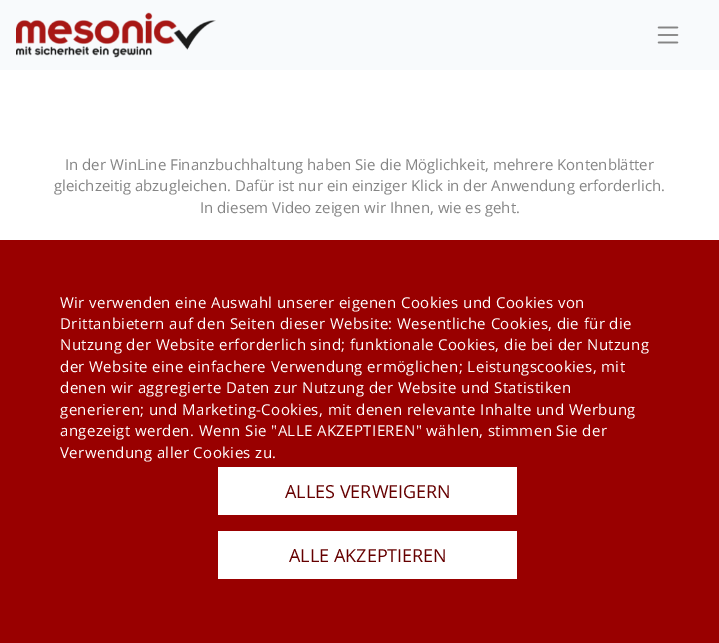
%!PS-Adobe-3.0
%%BoundingBox: 0 0 719 643
%%LanguageLevel: 3
%%Pages: 1
%%EndComments
%%BeginProlog
/setink { 3 { 255 div 3 1 roll } repeat setrgbcolor } def
/usefont { [ exch dup neg 0 0 3 -1 roll 0 0 ] selectfont } def
/drawtext { setink usefont moveto show } def
/fillbox { setink rectfill } def
/drawimage { 5 dict begin { /h /w /y /x /name } { exch def } forall
  gsave x y translate w h scale
  w h 8 [w 0 0 h 0 0] name (r) file false 3 colorimage grestore end } def
%%EndProlog
%%BeginSetup
<< /PageSize [719 643] >> setpagedevice
%%EndSetup
%%Page: 1 1
0 643 translate 1 -1 scale
4 setmiterlimit
0 0 719 643 255 255 255 fillbox
0 0 719 70 248 250 252 fillbox
(assets/img1.rgb) 16 12 200 46 drawimage
(assets/img2.rgb) 657 26 22 18 drawimage
(In der WinLine Finanzbuchhaltung haben Sie die Möglichkeit, mehrere Kontenblätter) 65 170 /OpenSans-Regular 15 133 133 133 drawtext
(gleichzeitig abzugleichen. Dafür ist nur ein einziger Klick in der Anwendung erforderlich.) 54 191 /OpenSans-Regular 15 133 133 133 drawtext
(In diesem Video zeigen wir Ihnen, wie es geht.) 200 213 /OpenSans-Regular 15 133 133 133 drawtext
0 240 719 403 153 0 0 fillbox
255 255 255 setink
60 308 moveto 0.4 0 (Wir verwenden eine Auswahl unserer eigenen Cookies und Cookies von) ashow
60 329 moveto 0.4 0 (Drittanbietern auf den Seiten dieser Website: Wesentliche Cookies, die für die) ashow
60 350 moveto 0.4 0 (Nutzung der Website erforderlich sind; funktionale Cookies, die bei der Nutzung) ashow
60 372 moveto 0.4 0 (der Website eine einfachere Verwendung ermöglichen; Leistungscookies, mit) ashow
60 393 moveto 0.4 0 (denen wir aggregierte Daten zur Nutzung der Website und Statistiken) ashow
60 415 moveto 0.4 0 (generieren; und Marketing-Cookies, mit denen relevante Inhalte und Werbung) ashow
60 436 moveto 0.4 0 (angezeigt werden. Wenn Sie "ALLE AKZEPTIEREN" wählen, stimmen Sie der) ashow
60 458 moveto 0.4 0 (Verwendung aller Cookies zu.) ashow
218 467 299 48 255 255 255 fillbox
(ALLES VERWEIGERN) 285 498 /OpenSans-Regular 18 102 0 0 drawtext
218 531 299 48 255 255 255 fillbox
(ALLE AKZEPTIEREN) 289 562 /OpenSans-Regular 18 102 0 0 drawtext
showpage
%%EOF
